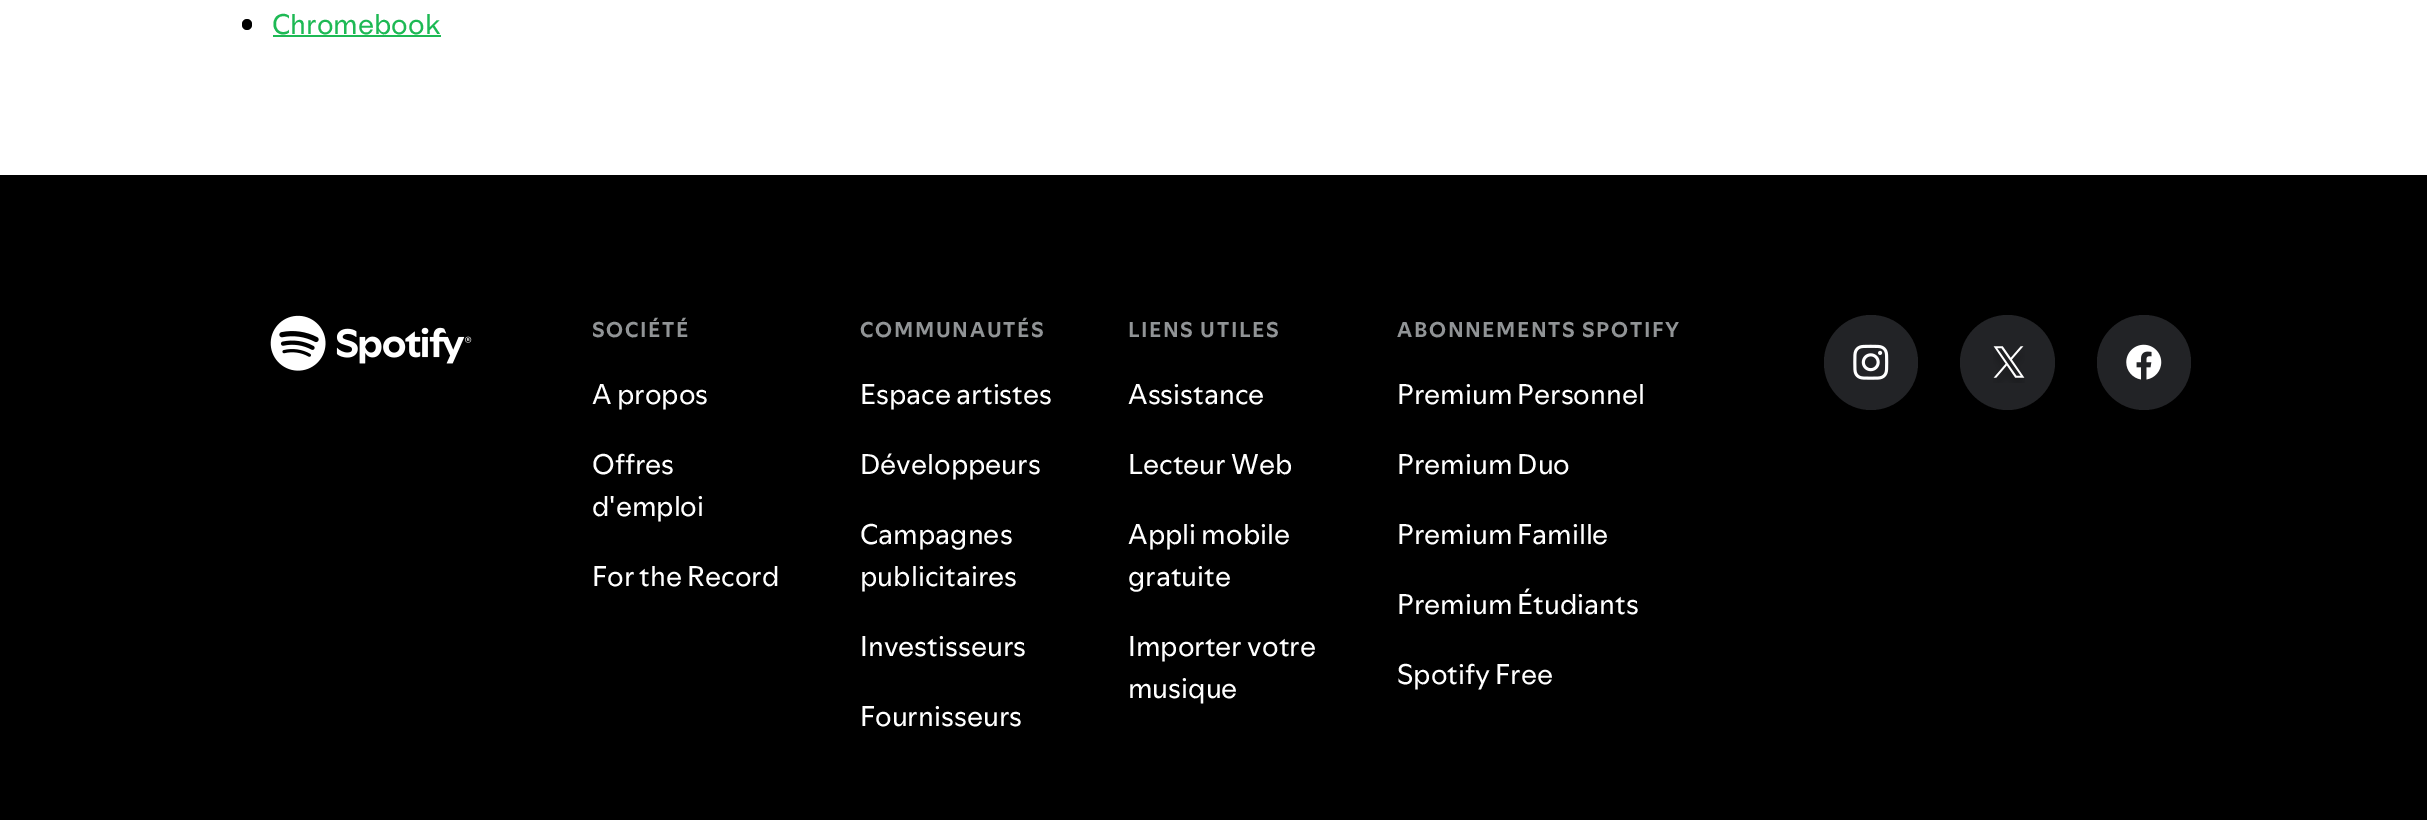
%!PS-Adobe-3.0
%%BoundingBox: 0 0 2427 820
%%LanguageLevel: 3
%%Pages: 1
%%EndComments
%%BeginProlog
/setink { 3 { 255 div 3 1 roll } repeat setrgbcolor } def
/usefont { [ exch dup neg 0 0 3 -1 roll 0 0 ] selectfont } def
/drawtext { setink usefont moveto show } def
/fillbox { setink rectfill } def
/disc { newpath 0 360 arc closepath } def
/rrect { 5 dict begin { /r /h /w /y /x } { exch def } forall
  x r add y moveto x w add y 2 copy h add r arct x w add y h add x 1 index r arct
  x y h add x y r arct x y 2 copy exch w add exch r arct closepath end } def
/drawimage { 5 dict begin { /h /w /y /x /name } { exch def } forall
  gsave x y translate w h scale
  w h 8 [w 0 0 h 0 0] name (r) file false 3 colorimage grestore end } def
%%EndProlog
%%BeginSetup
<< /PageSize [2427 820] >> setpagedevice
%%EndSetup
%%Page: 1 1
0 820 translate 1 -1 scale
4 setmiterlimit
0 0 2427 820 255 255 255 fillbox
0 0 0 setink
242 19 10 11 5 rrect fill
(Chromebook) 272 34 /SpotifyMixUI-Regular 28 29 185 84 drawtext
273 35 168 2 29 185 84 fillbox
0 175 2427 645 0 0 0 fillbox
(assets/img1.rgb) 270 315 202 56 drawimage
/SpotifyMixUI-Bold 21 usefont
145 148 150 setink
592 337 moveto 1.7 0 (SOCIÉTÉ) ashow
(A propos) 592 404 /SpotifyMixUI-Regular 28 255 255 255 drawtext
(Offres) 592 474 /SpotifyMixUI-Regular 28 255 255 255 drawtext
(d'emploi) 592 516 /SpotifyMixUI-Regular 28 255 255 255 drawtext
(For the Record) 592 586 /SpotifyMixUI-Regular 28 255 255 255 drawtext
/SpotifyMixUI-Bold 21 usefont
145 148 150 setink
860 337 moveto 1.7 0 (COMMUNAUTÉS) ashow
(Espace artistes) 860 404 /SpotifyMixUI-Regular 28 255 255 255 drawtext
(Développeurs) 860 474 /SpotifyMixUI-Regular 28 255 255 255 drawtext
(Campagnes) 860 544 /SpotifyMixUI-Regular 28 255 255 255 drawtext
(publicitaires) 860 586 /SpotifyMixUI-Regular 28 255 255 255 drawtext
(Investisseurs) 860 656 /SpotifyMixUI-Regular 28 255 255 255 drawtext
(Fournisseurs) 860 726 /SpotifyMixUI-Regular 28 255 255 255 drawtext
/SpotifyMixUI-Bold 21 usefont
145 148 150 setink
1128 337 moveto 1.7 0 (LIENS UTILES) ashow
(Assistance) 1128 404 /SpotifyMixUI-Regular 28 255 255 255 drawtext
(Lecteur Web) 1128 474 /SpotifyMixUI-Regular 28 255 255 255 drawtext
(Appli mobile) 1128 544 /SpotifyMixUI-Regular 28 255 255 255 drawtext
(gratuite) 1128 586 /SpotifyMixUI-Regular 28 255 255 255 drawtext
(Importer votre) 1128 656 /SpotifyMixUI-Regular 28 255 255 255 drawtext
(musique) 1128 698 /SpotifyMixUI-Regular 28 255 255 255 drawtext
/SpotifyMixUI-Bold 21 usefont
145 148 150 setink
1397 337 moveto 1.7 0 (ABONNEMENTS SPOTIFY) ashow
(Premium Personnel) 1397 404 /SpotifyMixUI-Regular 28 255 255 255 drawtext
(Premium Duo) 1397 474 /SpotifyMixUI-Regular 28 255 255 255 drawtext
(Premium Famille) 1397 544 /SpotifyMixUI-Regular 28 255 255 255 drawtext
(Premium Étudiants) 1397 614 /SpotifyMixUI-Regular 28 255 255 255 drawtext
(Spotify Free) 1397 684 /SpotifyMixUI-Regular 28 255 255 255 drawtext
34 35 38 setink
1824 315 94 95 47 rrect fill
(assets/img2.rgb) 1853 344 36 36 drawimage
2007.5 362.5 47.5 disc fill
(assets/img3.rgb) 1993 346 32 37 drawimage
2097 315 94 95 47 rrect fill
(assets/img4.rgb) 2126 344 36 36 drawimage
showpage
%%EOF
